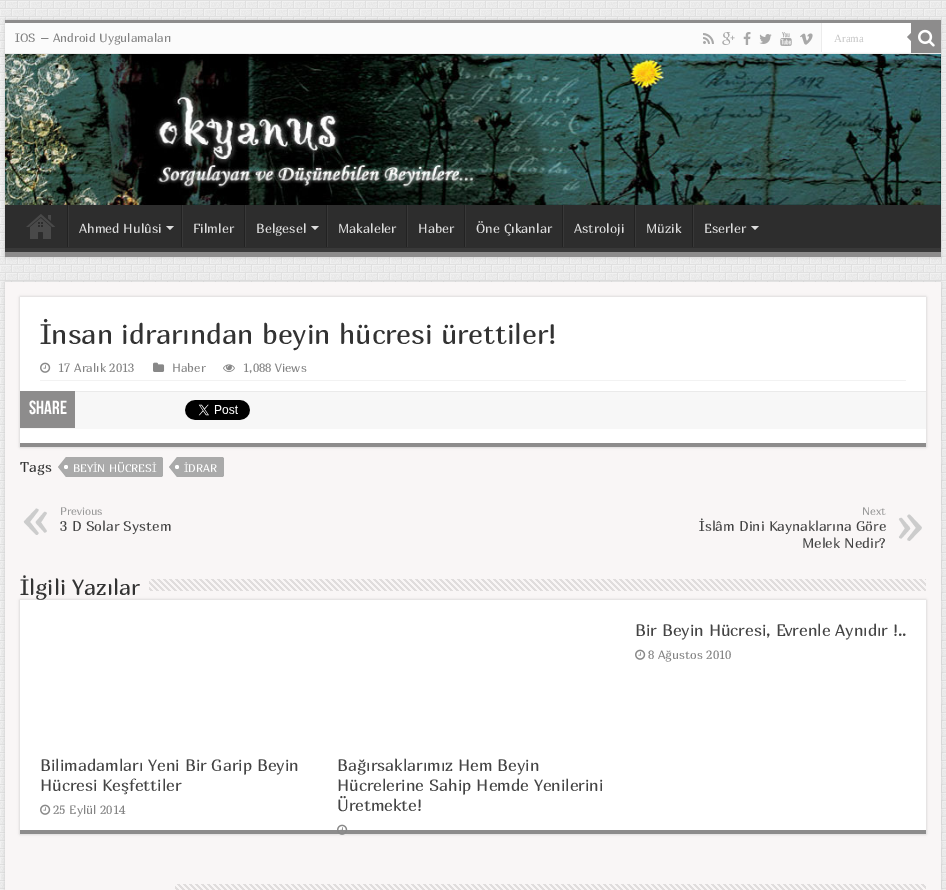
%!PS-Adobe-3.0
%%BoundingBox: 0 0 946 890
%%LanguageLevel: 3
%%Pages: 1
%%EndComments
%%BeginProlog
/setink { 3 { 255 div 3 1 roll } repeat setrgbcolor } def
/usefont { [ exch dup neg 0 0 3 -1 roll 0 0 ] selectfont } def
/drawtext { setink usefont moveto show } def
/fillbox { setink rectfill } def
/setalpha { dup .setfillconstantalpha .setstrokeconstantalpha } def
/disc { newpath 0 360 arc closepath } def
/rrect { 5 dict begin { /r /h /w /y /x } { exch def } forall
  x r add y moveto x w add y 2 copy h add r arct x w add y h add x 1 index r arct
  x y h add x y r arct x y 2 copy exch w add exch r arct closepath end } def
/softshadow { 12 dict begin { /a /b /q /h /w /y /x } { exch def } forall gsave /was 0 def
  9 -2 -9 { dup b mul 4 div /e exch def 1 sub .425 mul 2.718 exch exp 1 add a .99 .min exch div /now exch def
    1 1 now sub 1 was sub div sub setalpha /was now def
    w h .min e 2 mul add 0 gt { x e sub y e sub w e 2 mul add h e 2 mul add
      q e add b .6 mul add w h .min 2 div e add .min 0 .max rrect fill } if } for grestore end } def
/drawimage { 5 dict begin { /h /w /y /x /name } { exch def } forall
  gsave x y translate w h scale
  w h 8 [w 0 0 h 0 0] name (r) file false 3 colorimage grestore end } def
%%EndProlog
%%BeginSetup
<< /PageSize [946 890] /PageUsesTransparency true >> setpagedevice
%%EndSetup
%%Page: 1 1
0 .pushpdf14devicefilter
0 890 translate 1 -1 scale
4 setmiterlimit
0 0 946 890 255 255 255 fillbox
(assets/img1.rgb) 0 0 946 890 drawimage
202 202 202 setink
5 20 936 237 0 1.5 1 softshadow
5 20 936 3 141 140 140 fillbox
5 23 906 30 251 251 251 fillbox
5 53 936 1 236 236 236 fillbox
(IOS – Android Uygulamaları) 15 42 /Marmelad-Regular 12 131 131 131 drawtext
(assets/img2.rgb) 703 33 11 11 drawimage
(assets/img3.rgb) 722 32 13 13 drawimage
(assets/img4.rgb) 743 32 8 13 drawimage
(assets/img5.rgb) 759 34 13 10 drawimage
(assets/img6.rgb) 780 32 12 14 drawimage
(assets/img7.rgb) 800 33 13 12 drawimage
822 23 89 29 255 255 255 fillbox
821 23 1 29 236 236 236 fillbox
(Arama) 834 42 /LiberationSerif-Regular 11 197 197 197 drawtext
911 23 30 30 141 140 140 fillbox
(assets/img8.rgb) 918 29 17 18 drawimage
911 33 moveto 911 41 lineto 907 37 lineto closepath fill
(assets/img9.rgb) 5 54 936 151 drawimage
5 205 936 43 45 45 45 fillbox
gsave
5 205 936 47 rectclip
57 57 57 setink
-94 106 moveto 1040 106 lineto 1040 351 lineto -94 351 lineto closepath 4 199 moveto 940 199 lineto 941 200 lineto 941 239 lineto 941 240 942 248 940 248 curveto 4 248 lineto 3 247 lineto 3 199 lineto closepath eofill
grestore
5 252 936 5 141 140 140 fillbox
(assets/img10.rgb) 26 214 29 25 drawimage
67 205 1 42 34 34 34 fillbox
68 205 1 42 56 56 56 fillbox
(Ahmed Hulûsi) 79 233 /Marmelad-Regular 13 221 221 221 drawtext
166 226 moveto 174 226 lineto 170 230 lineto closepath fill
181 205 1 42 34 34 34 fillbox
182 205 1 42 56 56 56 fillbox
(Filmler) 193 233 /Marmelad-Regular 13 221 221 221 drawtext
244 205 1 42 34 34 34 fillbox
245 205 1 42 56 56 56 fillbox
(Belgesel) 256 233 /Marmelad-Regular 13 221 221 221 drawtext
311 226 moveto 319 226 lineto 315 230 lineto closepath fill
326 205 1 42 34 34 34 fillbox
327 205 1 42 56 56 56 fillbox
(Makaleler) 338 233 /Marmelad-Regular 13 221 221 221 drawtext
406 205 1 42 34 34 34 fillbox
407 205 1 42 56 56 56 fillbox
(Haber) 418 233 /Marmelad-Regular 13 221 221 221 drawtext
464 205 1 42 34 34 34 fillbox
465 205 1 42 56 56 56 fillbox
(Öne Çıkanlar) 476 233 /Marmelad-Regular 13 221 221 221 drawtext
562 205 1 42 34 34 34 fillbox
563 205 1 42 56 56 56 fillbox
(Astroloji) 574 233 /Marmelad-Regular 13 221 221 221 drawtext
634 205 1 42 34 34 34 fillbox
635 205 1 42 56 56 56 fillbox
(Müzik) 646 233 /Marmelad-Regular 13 221 221 221 drawtext
692 205 1 42 34 34 34 fillbox
693 205 1 42 56 56 56 fillbox
(Eserler) 704 233 /Marmelad-Regular 13 221 221 221 drawtext
751 226 moveto 759 226 lineto 755 230 lineto closepath fill
202 202 202 setink
5 282 936 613 0 1.5 1 softshadow
5 282 936 608 249 246 246 fillbox
202 202 202 setink
20 297 906 150 0 1.5 1 softshadow
20 297 906 146 255 255 255 fillbox
20 443 906 4 141 140 140 fillbox
(İnsan idrarından beyin hücresi ürettiler!) 40 344 /Marmelad-Regular 28 51 51 51 drawtext
40 380 866 1 242 242 242 fillbox
(assets/img11.rgb) 40 362 11 11 drawimage
(17 Aralık 2013) 58 372 /Marmelad-Regular 12 131 131 131 drawtext
(assets/img12.rgb) 153 362 12 10 drawimage
(Haber) 172 372 /Marmelad-Regular 12 131 131 131 drawtext
(assets/img13.rgb) 223 364 12 8 drawimage
(1,088 Views) 243 372 /Marmelad-Regular 12 131 131 131 drawtext
20 392 906 37 247 247 247 fillbox
75 391 851 1 234 234 234 fillbox
20 391 55 37 141 140 140 fillbox
(Share) 29 414 /BebasNeue-Bold 19 255 255 255 drawtext
(assets/img14.rgb) 185 400 65 20 drawimage
(Tags) 20 472 /Marmelad-Regular 14 51 51 51 drawtext
170 170 170 setink
66 457 moveto 161 457 lineto 162 457 163 458 163 459 curveto 163 475 lineto 163 476 162 477 161 477 curveto 66 477 lineto closepath fill
66 457 moveto 66 477 lineto 58 467 lineto closepath fill
(BEYİN HÜCRESİ) 73 472 /Marmelad-Regular 11 255 255 255 drawtext
66 467 2 disc fill
170 170 170 setink
177 457 moveto 222 457 lineto 223 457 224 458 224 459 curveto 224 475 lineto 224 476 223 477 222 477 curveto 177 477 lineto closepath fill
177 457 moveto 177 477 lineto 169 467 lineto closepath fill
(İDRAR) 184 472 /Marmelad-Regular 11 255 255 255 drawtext
177 467 2 disc fill
(«) 20 535 /Marmelad-Regular 56 204 204 204 drawtext
(Previous) 60 515 /Marmelad-Regular 11 153 153 153 drawtext
(3 D Solar System) 60 531 /Marmelad-Regular 14 68 68 68 drawtext
(Next) 862 515 /Marmelad-Regular 11 153 153 153 drawtext
(İslâm Dini Kaynaklarına Göre) 699 531 /Marmelad-Regular 14 68 68 68 drawtext
(») 895 541 /Marmelad-Regular 56 204 204 204 drawtext
(Melek Nedir?) 802 548 /Marmelad-Regular 14 68 68 68 drawtext
202 202 202 setink
20 600 906 234 0 1.5 1 softshadow
(İlgili Yazılar) 20 595 /Marmelad-Regular 22 51 51 51 drawtext
(assets/img15.rgb) 149 579 777 12 drawimage
20 600 906 230 255 255 255 fillbox
20 830 906 4 141 140 140 fillbox
(Bir Beyin Hücresi, Evrenle Aynıdır !..) 635 636 /Marmelad-Regular 16.4 68 68 68 drawtext
(assets/img11.rgb) 635 649 11 11 drawimage
(8 Ağustos 2010) 648 659 /Marmelad-Regular 12 131 131 131 drawtext
(Bilimadamları Yeni Bir Garip Beyin) 40 771 /Marmelad-Regular 16.4 68 68 68 drawtext
(Hücresi Keşfettiler) 40 791 /Marmelad-Regular 16.4 68 68 68 drawtext
(assets/img11.rgb) 40 804 11 11 drawimage
(25 Eylül 2014) 53 814 /Marmelad-Regular 12 131 131 131 drawtext
(Bağırsaklarımız Hem Beyin) 337 771 /Marmelad-Regular 16.4 68 68 68 drawtext
(Hücrelerine Sahip Hemde Yenilerini) 337 791 /Marmelad-Regular 16.4 68 68 68 drawtext
(Üretmekte!) 337 811 /Marmelad-Regular 16.4 68 68 68 drawtext
(assets/img16.rgb) 337 824 11 11 drawimage
(assets/img17.rgb) 175 884 751 6 drawimage
.poppdf14devicefilter showpage
%%EOF
